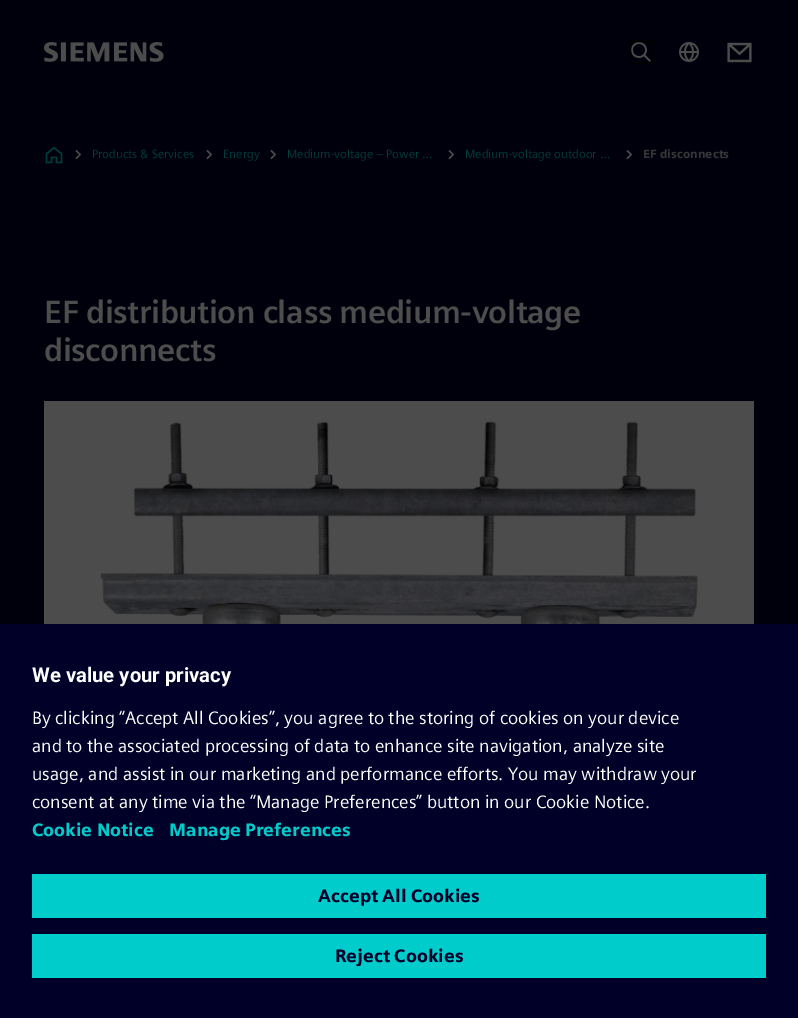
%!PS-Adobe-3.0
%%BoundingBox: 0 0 798 1018
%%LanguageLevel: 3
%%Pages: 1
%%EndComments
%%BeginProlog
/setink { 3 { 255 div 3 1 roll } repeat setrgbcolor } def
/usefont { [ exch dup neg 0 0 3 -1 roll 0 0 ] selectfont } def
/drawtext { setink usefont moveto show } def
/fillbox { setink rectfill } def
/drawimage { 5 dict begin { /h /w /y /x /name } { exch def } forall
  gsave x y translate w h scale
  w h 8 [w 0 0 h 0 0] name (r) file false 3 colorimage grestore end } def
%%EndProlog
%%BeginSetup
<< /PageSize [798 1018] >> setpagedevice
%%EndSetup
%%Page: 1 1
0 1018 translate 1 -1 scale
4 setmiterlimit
0 0 798 1018 0 0 12 fillbox
(assets/img1.rgb) 44 42 120 20 drawimage
(assets/img2.rgb) 631 42 20 20 drawimage
0 0 0 setink
2 setlinewidth
630 41 22 22 rectstroke
(assets/img3.rgb) 679 42 20 20 drawimage
(assets/img4.rgb) 727 42 25 21 drawimage
(assets/img5.rgb) 45 146 18 18 drawimage
(assets/img6.rgb) 75 149 7 11 drawimage
(Products & Services) 92 158 /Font-Regular 12 0 61 61 drawtext
(assets/img6.rgb) 206 149 7 11 drawimage
(Energy) 223 158 /Font-Regular 12 0 61 61 drawtext
(assets/img6.rgb) 270 149 7 11 drawimage
(Medium-voltage – Power …) 287 158 /Font-Regular 12 0 61 61 drawtext
(assets/img6.rgb) 448 149 7 11 drawimage
(Medium-voltage outdoor …) 465 158 /Font-Regular 12 0 61 61 drawtext
(assets/img6.rgb) 626 149 7 11 drawimage
(EF disconnects) 643 158 /Font-Bold 12 54 54 57 drawtext
/Font-SemiBold 32 usefont
77 77 77 setink
44 323 moveto -0.5 0 (EF distribution class medium-voltage) ashow
44 361 moveto -0.5 0 (disconnects) ashow
(assets/img7.rgb) 44 401 710 223 drawimage
0 624 798 394 0 0 40 fillbox
(We value your privacy) 32 682 /Roboto-Bold 20.25 255 255 255 drawtext
(By clicking “Accept All Cookies”, you agree to the storing of cookies on your device) 32 724 /Font-Regular 18 255 255 255 drawtext
(and to the associated processing of data to enhance site navigation, analyze site) 32 752 /Font-Regular 18 255 255 255 drawtext
(usage, and assist in our marketing and performance efforts. You may withdraw your) 32 780 /Font-Regular 18 255 255 255 drawtext
(consent at any time via the “Manage Preferences” button in our Cookie Notice.) 32 808 /Font-Regular 18 255 255 255 drawtext
(Cookie Notice) 32 836 /Font-Bold 18 0 204 204 drawtext
(Manage Preferences) 169 836 /Font-Bold 18 0 204 204 drawtext
32 874 734 44 0 204 204 fillbox
(Accept All Cookies) 318 902 /Font-Bold 18 0 0 40 drawtext
32 934 734 44 0 204 204 fillbox
(Reject Cookies) 335 962 /Font-Bold 18 0 0 40 drawtext
showpage
%%EOF
